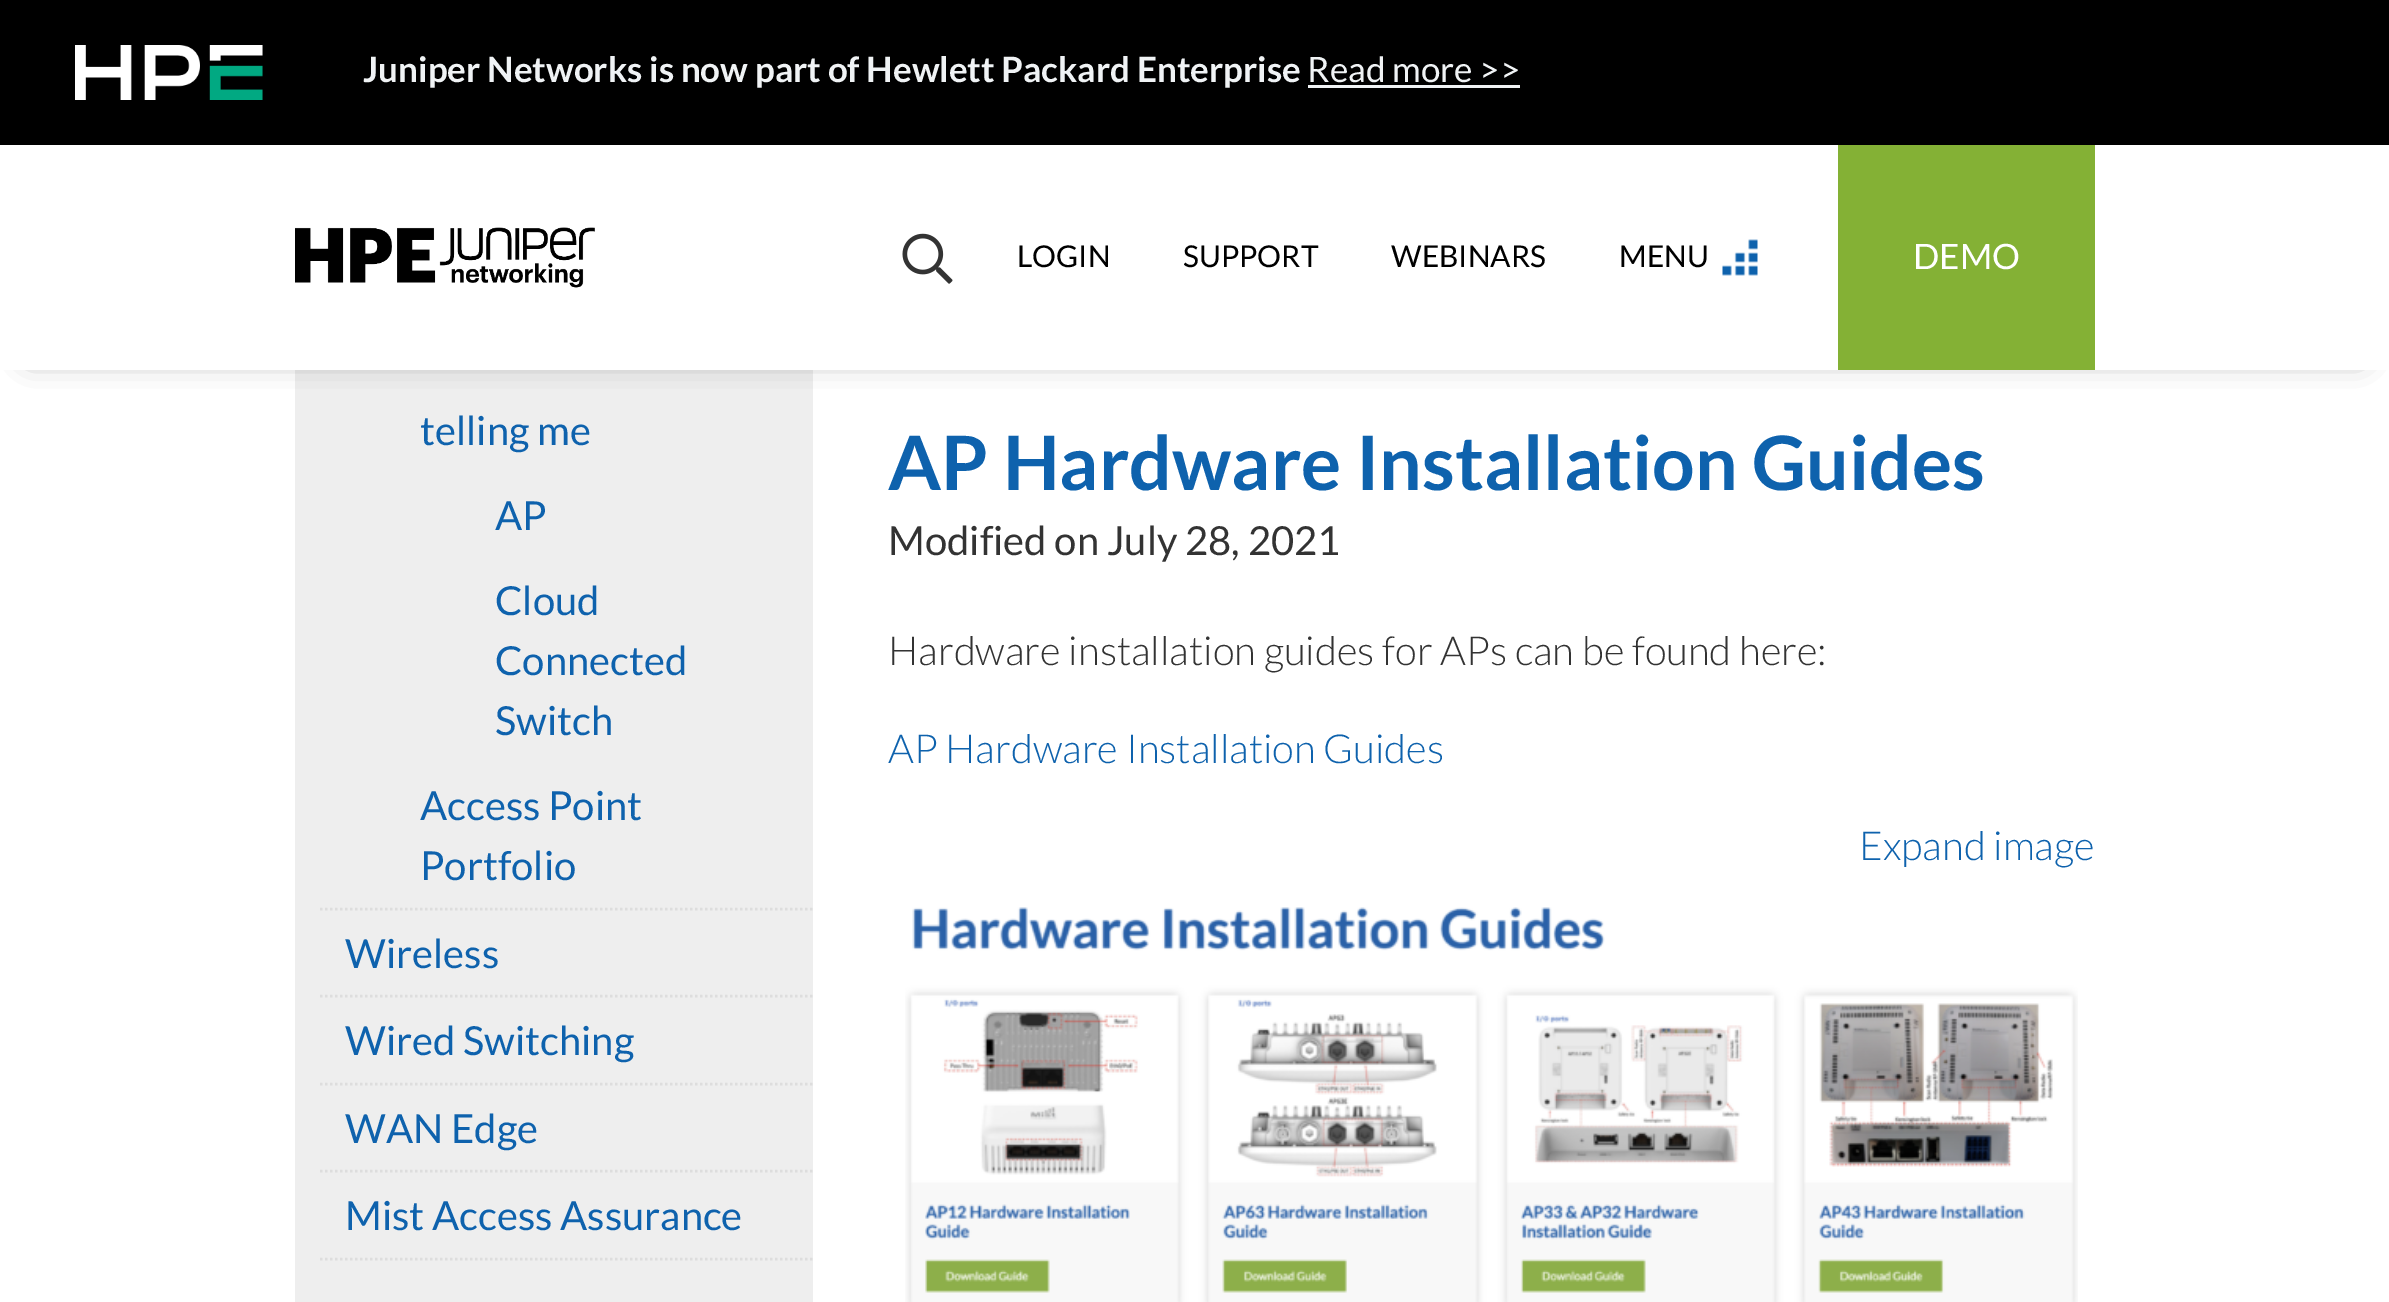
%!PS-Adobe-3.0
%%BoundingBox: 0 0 2389 1302
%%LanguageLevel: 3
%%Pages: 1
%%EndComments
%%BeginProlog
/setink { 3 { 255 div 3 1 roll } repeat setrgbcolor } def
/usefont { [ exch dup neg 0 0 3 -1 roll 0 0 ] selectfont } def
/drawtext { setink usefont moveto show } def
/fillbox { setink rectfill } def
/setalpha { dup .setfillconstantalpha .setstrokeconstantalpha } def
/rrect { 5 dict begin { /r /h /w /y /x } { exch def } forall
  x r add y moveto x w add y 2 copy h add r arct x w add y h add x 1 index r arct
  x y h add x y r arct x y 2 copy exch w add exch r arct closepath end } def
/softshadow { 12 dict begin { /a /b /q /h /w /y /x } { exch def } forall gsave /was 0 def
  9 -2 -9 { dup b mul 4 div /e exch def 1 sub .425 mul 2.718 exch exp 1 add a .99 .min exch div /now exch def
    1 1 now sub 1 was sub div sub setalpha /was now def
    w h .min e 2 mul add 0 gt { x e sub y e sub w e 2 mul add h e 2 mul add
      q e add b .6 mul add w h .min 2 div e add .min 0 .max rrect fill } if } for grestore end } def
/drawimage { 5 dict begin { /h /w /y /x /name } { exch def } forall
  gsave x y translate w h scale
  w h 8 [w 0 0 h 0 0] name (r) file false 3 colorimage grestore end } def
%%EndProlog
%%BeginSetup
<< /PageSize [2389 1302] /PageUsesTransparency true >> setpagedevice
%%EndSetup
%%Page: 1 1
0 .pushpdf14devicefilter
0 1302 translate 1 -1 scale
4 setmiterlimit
0 0 2389 1302 255 255 255 fillbox
295 370 518 932 238 238 238 fillbox
0 0 0 setink
30 45 2330 310 0 15 0.5 softshadow
0 145 2389 225 255 255 255 fillbox
0 0 2389 145 0 0 0 fillbox
(assets/img1.rgb) 75 45 188 55 drawimage
(Juniper Networks is now part of Hewlett Packard Enterprise) 363 82 /Lato-Bold 35 240 243 245 drawtext
(Read more >>) 1307 82 /Lato-Regular 35 240 243 245 drawtext
1308 85 212 3 240 243 245 fillbox
(assets/img2.rgb) 295 227 300 61 drawimage
(assets/img3.rgb) 902 233 51 51 drawimage
(LOGIN) 1017 267 /Lato-Regular 30 0 0 0 drawtext
(SUPPORT) 1183 267 /Lato-Regular 30 0 0 0 drawtext
(WEBINARS) 1391 267 /Lato-Regular 30 0 0 0 drawtext
(MENU) 1619 267 /Lato-Regular 30 0 0 0 drawtext
(assets/img4.rgb) 1722 239 36 37 drawimage
1838 145 257 225 132 177 53 fillbox
(DEMO) 1913 269 /Lato-Regular 35 255 255 255 drawtext
(telling me) 420 445 /Lato-Regular 40 14 98 173 drawtext
(AP) 495 530 /Lato-Regular 40 14 98 173 drawtext
(Cloud) 495 615 /Lato-Regular 40 14 98 173 drawtext
(Connected) 495 675 /Lato-Regular 40 14 98 173 drawtext
(Switch) 495 735 /Lato-Regular 40 14 98 173 drawtext
(Access Point) 420 820 /Lato-Regular 40 14 98 173 drawtext
(Portfolio) 420 880 /Lato-Regular 40 14 98 173 drawtext
221 221 221 setink
2.5 setlinewidth
[2.5 2.5] 0 setdash
320 909 moveto 812.5 909 lineto stroke
(Wireless) 345 968 /Lato-Regular 40 14 98 173 drawtext
221 221 221 setink
320 996 moveto 812.5 996 lineto stroke
(Wired Switching) 345 1055 /Lato-Regular 40 14 98 173 drawtext
221 221 221 setink
320 1084 moveto 812.5 1084 lineto stroke
(WAN Edge) 345 1143 /Lato-Regular 40 14 98 173 drawtext
221 221 221 setink
320 1171 moveto 812.5 1171 lineto stroke
(Mist Access Assurance) 345 1230 /Lato-Regular 40 14 98 173 drawtext
221 221 221 setink
320 1259 moveto 812.5 1259 lineto stroke
(AP Hardware Installation Guides) 888 490 /Lato-Bold 75 14 98 173 drawtext
(Modified on July 28, 2021) 888 555 /Lato-Regular 40 51 51 51 drawtext
(Hardware installation guides for APs can be found here:) 888 665 /Lato-Light 40 51 51 51 drawtext
(AP Hardware Installation Guides) 888 763 /Lato-Light 40 14 98 173 drawtext
(Expand image) 1859 860 /Lato-Light 40 14 98 173 drawtext
(assets/img5.rgb) 905 907 1173 395 drawimage
.poppdf14devicefilter showpage
%%EOF
